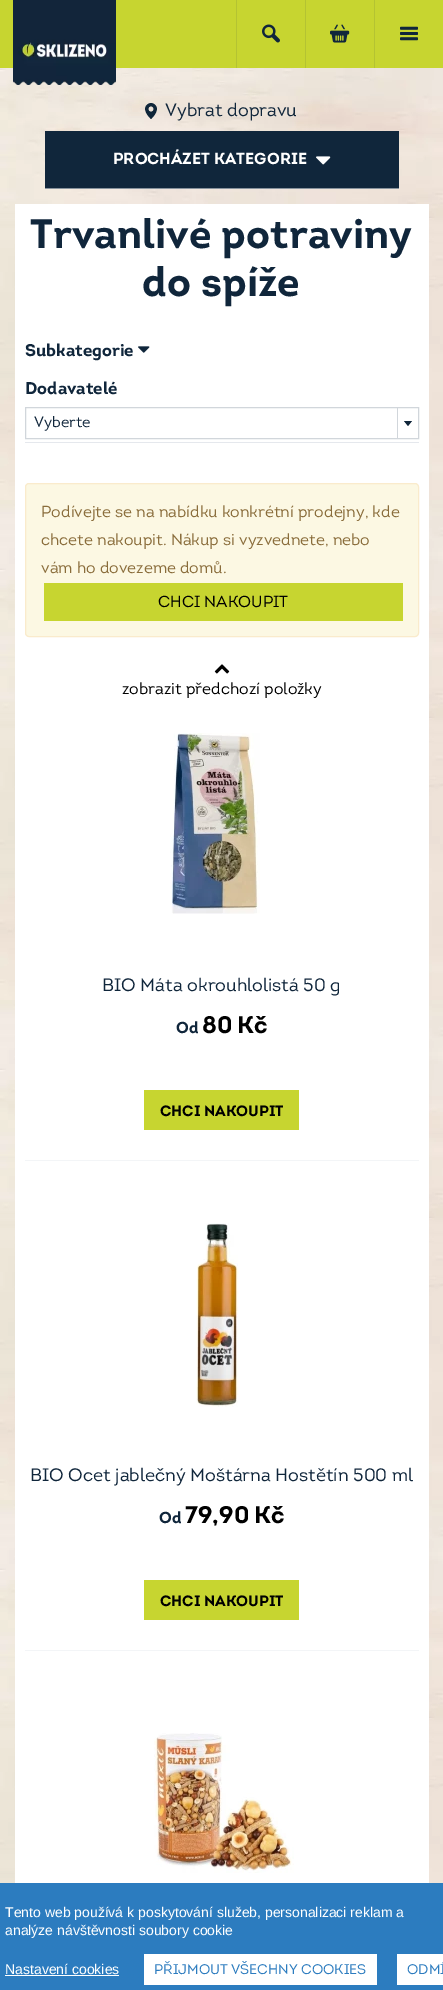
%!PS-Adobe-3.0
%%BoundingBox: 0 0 443 1990
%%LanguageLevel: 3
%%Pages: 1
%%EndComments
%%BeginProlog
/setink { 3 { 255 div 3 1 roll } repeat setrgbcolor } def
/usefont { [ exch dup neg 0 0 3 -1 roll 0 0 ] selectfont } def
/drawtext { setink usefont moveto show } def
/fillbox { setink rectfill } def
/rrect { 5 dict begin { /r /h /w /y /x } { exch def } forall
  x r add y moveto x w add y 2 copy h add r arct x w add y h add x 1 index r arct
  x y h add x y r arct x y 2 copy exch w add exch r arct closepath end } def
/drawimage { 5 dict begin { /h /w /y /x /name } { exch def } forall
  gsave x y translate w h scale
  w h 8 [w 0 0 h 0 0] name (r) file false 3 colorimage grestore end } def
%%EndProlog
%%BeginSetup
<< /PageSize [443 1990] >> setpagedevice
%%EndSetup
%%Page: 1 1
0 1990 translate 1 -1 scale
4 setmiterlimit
0 0 443 1990 255 255 255 fillbox
(assets/img1.rgb) 0 68 443 1815 drawimage
0 0 443 68 199 213 48 fillbox
(assets/img2.rgb) 13 0 103 85 drawimage
236 0 1 68 180 195 50 fillbox
(assets/img3.rgb) 262 24 18 19 drawimage
305 0 1 68 180 195 50 fillbox
(assets/img4.rgb) 330 24 20 19 drawimage
374 0 1 68 180 195 50 fillbox
(assets/img5.rgb) 400 26 18 15 drawimage
(assets/img6.rgb) 145 103 12 16 drawimage
(Vybrat dopravu) 165 116 /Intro-Regular 18 16 38 59 drawtext
45 131 354 57 16 38 59 fillbox
45 188 354 1 136 147 157 fillbox
(PROCHÁZET KATEGORIE) 113 164 /Intro-Bold 16 255 255 255 drawtext
(assets/img7.rgb) 316 156 15 9 drawimage
15 204 414 1679 255 255 255 fillbox
(Trvanlivé potraviny) 30 248 /Intro-Bold 41.1 16 38 59 drawtext
(do spíže) 142 296 /Intro-Bold 41.1 16 38 59 drawtext
(Subkategorie) 25 356 /Intro-Bold 17 16 38 59 drawtext
(assets/img8.rgb) 138 346 12 7 drawimage
(Dodavatelé) 25 394 /Intro-Bold 17 16 38 59 drawtext
25 442 394 1 229 232 237 fillbox
209 214 219 setink
25.5 407.5 393 31 rectstroke
(Vyberte) 34 427 /Intro-Regular 15 16 38 59 drawtext
397 408 1 31 209 214 219 fillbox
16 38 59 setink
404 421 moveto 412 421 lineto 408 426 lineto closepath fill
252 248 227 setink
25.5 483.5 393 153 3.5 rrect gsave fill grestore
250 235 204 setink
stroke
(Podívejte se na nabídku konkrétní prodejny, kde) 41 517 /Intro-Regular 16 138 109 59 drawtext
(chcete nakoupit. Nákup si vyzvednete, nebo) 41 545 /Intro-Regular 16 138 109 59 drawtext
(vám ho dovezeme domů.) 41 573 /Intro-Regular 16 138 109 59 drawtext
44 583 359 38 199 213 48 fillbox
(CHCI NAKOUPIT) 158 607 /Intro-Regular 16 0 0 0 drawtext
(assets/img9.rgb) 214 664 16 10 drawimage
(zobrazit předchozí položky) 122 694 /Intro-Regular 16 0 0 0 drawtext
25 1160 394 1 243 245 247 fillbox
(assets/img10.rgb) 170 733 90 181 drawimage
(BIO Máta okrouhlolistá 50 g) 102 991 /Intro-Regular 18 16 38 59 drawtext
(Od) 176 1033 /Intro-Bold 16 16 38 59 drawtext
(80) 202 1033 /Intro-Bold 24 0 0 0 drawtext
(Kč) 237 1033 /Intro-Bold 24 0 0 0 drawtext
144 1090 155 40 199 213 48 fillbox
(CHCI NAKOUPIT) 160 1116 /Intro-Bold 15 0 0 0 drawtext
25 1650 394 1 243 245 247 fillbox
(assets/img11.rgb) 196 1223 43 184 drawimage
(BIO Ocet jablečný Moštárna Hostětín 500 ml) 30 1481 /Intro-Regular 18 16 38 59 drawtext
(Od) 159 1523 /Intro-Bold 16 16 38 59 drawtext
(79,90) 185 1523 /Intro-Bold 24 0 0 0 drawtext
(Kč) 254 1523 /Intro-Bold 24 0 0 0 drawtext
144 1580 155 40 199 213 48 fillbox
(CHCI NAKOUPIT) 160 1606 /Intro-Bold 15 0 0 0 drawtext
(assets/img12.rgb) 154 1733 140 140 drawimage
0 1883 443 107 44 124 191 fillbox
(Tento web používá k poskytování služeb, personalizaci reklam a) 5 1917 /LiberationSans-Regular 14 255 255 255 drawtext
(analýze návštěvnosti soubory cookie) 5 1935 /LiberationSans-Regular 14 255 255 255 drawtext
(Nastavení cookies) 5 1974 /LiberationSans-Regular 14 255 255 255 drawtext
5 1975 114 1 255 255 255 fillbox
144 1954 233 31 255 255 255 fillbox
(PŘIJMOUT VŠECHNY COOKIES) 154 1974 /Intro-Regular 14 44 124 191 drawtext
397 1954 46 31 255 255 255 fillbox
(ODMÍ) 407 1974 /Intro-Regular 14 44 124 191 drawtext
showpage
%%EOF
